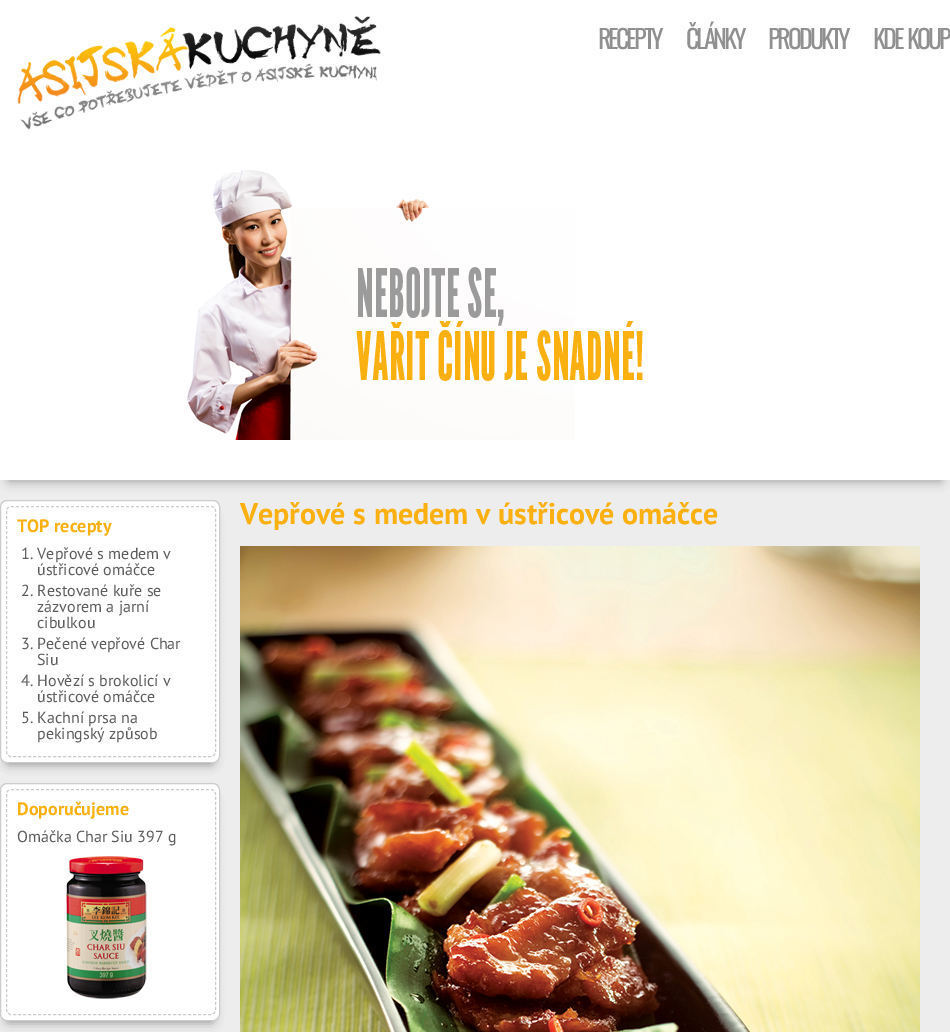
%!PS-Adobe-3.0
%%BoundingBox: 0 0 950 1032
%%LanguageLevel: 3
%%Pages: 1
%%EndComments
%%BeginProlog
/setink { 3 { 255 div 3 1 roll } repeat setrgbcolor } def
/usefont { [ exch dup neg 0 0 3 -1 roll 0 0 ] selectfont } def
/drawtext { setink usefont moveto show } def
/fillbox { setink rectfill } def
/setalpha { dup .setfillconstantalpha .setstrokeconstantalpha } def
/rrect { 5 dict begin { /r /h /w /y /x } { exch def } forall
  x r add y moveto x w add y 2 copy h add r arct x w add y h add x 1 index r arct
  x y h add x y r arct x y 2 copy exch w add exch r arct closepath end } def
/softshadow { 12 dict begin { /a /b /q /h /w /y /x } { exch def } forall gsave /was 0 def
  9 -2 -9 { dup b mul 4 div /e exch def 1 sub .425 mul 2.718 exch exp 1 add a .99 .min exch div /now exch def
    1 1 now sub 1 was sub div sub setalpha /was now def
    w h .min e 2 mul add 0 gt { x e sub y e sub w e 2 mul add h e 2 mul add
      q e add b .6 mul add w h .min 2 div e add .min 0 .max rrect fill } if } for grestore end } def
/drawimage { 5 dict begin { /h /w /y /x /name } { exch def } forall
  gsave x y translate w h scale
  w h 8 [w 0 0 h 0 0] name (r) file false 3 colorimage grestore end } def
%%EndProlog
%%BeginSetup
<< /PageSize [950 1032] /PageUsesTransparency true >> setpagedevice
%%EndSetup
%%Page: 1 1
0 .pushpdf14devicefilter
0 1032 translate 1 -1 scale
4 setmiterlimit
0 0 950 1032 237 237 237 fillbox
153 153 153 setink
9 19 932 462 0 5.5 1 softshadow
0 0 950 480 255 255 255 fillbox
(assets/img1.rgb) 17 16 364 114 drawimage
/Oswald-Regular 26 usefont
144 144 144 setink
598 49 moveto -3 0 (RECEPTY) ashow
686 49 moveto -3 0 (ČLÁNKY) ashow
768 49 moveto -3 0 (PRODUKTY) ashow
873 49 moveto -3 0 (KDE  KOUP) ashow
(assets/img2.rgb) 187 170 456 270 drawimage
(Vepřové s medem v ústřicové omáčce) 240 524 /PTSans-Bold 30 250 176 16 drawtext
(assets/img3.rgb) 240 546 680 486 drawimage
gsave
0 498 moveto 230 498 lineto 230 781 lineto 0 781 lineto closepath 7 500 moveto 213 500 lineto 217 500 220 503 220 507 curveto 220 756 lineto 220 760 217 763 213 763 curveto 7 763 lineto 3 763 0 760 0 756 curveto 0 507 lineto 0 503 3 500 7 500 curveto closepath eoclip newpath
119 119 119 setink
8 516 204 247 0 5.5 1 softshadow
grestore
255 255 255 setink
0.5 500.5 219 262 6.5 rrect gsave fill grestore
204 204 204 setink
stroke
[3 2] 0 setdash
11 506.5 moveto 211 506.5 lineto 213.5 506.5 215.5 508.5 215.5 511 curveto 215.5 752 lineto 215.5 754.5 213.5 756.5 211 756.5 curveto 11 756.5 lineto 8.5 756.5 6.5 754.5 6.5 752 curveto 6.5 511 lineto 6.5 508.5 8.5 506.5 11 506.5 curveto closepath stroke
(TOP recepty) 17 532 /PTSans-Bold 18 250 176 16 drawtext
(1. Vepřové s medem v) 21 559 /PTSans-Regular 16 93 93 93 drawtext
(ústřicové omáčce) 37 575 /PTSans-Regular 16 93 93 93 drawtext
(2. Restované kuře se) 21 596 /PTSans-Regular 16 93 93 93 drawtext
(zázvorem a jarní) 37 612 /PTSans-Regular 16 93 93 93 drawtext
(cibulkou) 37 628 /PTSans-Regular 16 93 93 93 drawtext
(3. Pečené vepřové Char) 21 649 /PTSans-Regular 16 93 93 93 drawtext
(Siu) 37 665 /PTSans-Regular 16 93 93 93 drawtext
(4. Hovězí s brokolicí v) 21 686 /PTSans-Regular 16 93 93 93 drawtext
(ústřicové omáčce) 37 702 /PTSans-Regular 16 93 93 93 drawtext
(5. Kachní prsa na) 21 723 /PTSans-Regular 16 93 93 93 drawtext
(pekingský způsob) 37 739 /PTSans-Regular 16 93 93 93 drawtext
gsave
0 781 moveto 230 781 lineto 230 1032 lineto 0 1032 lineto closepath 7 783 moveto 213 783 lineto 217 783 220 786 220 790 curveto 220 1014 lineto 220 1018 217 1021 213 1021 curveto 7 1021 lineto 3 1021 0 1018 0 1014 curveto 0 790 lineto 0 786 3 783 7 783 curveto closepath eoclip newpath
119 119 119 setink
8 799 204 222 0 5.5 1 softshadow
grestore
255 255 255 setink
0.5 783.5 219 237 6.5 rrect gsave fill grestore
204 204 204 setink
[] 0 setdash
stroke
[3 2] 0 setdash
11 789.5 moveto 211 789.5 lineto 213.5 789.5 215.5 791.5 215.5 794 curveto 215.5 1010 lineto 215.5 1012.5 213.5 1014.5 211 1014.5 curveto 11 1014.5 lineto 8.5 1014.5 6.5 1012.5 6.5 1010 curveto 6.5 794 lineto 6.5 791.5 8.5 789.5 11 789.5 curveto closepath stroke
(Doporučujeme) 17 815 /PTSans-Bold 18 250 176 16 drawtext
(Omáčka Char Siu 397 g) 17 842 /PTSans-Regular 16 93 93 93 drawtext
(assets/img4.rgb) 66 856 81 143 drawimage
.poppdf14devicefilter showpage
%%EOF
